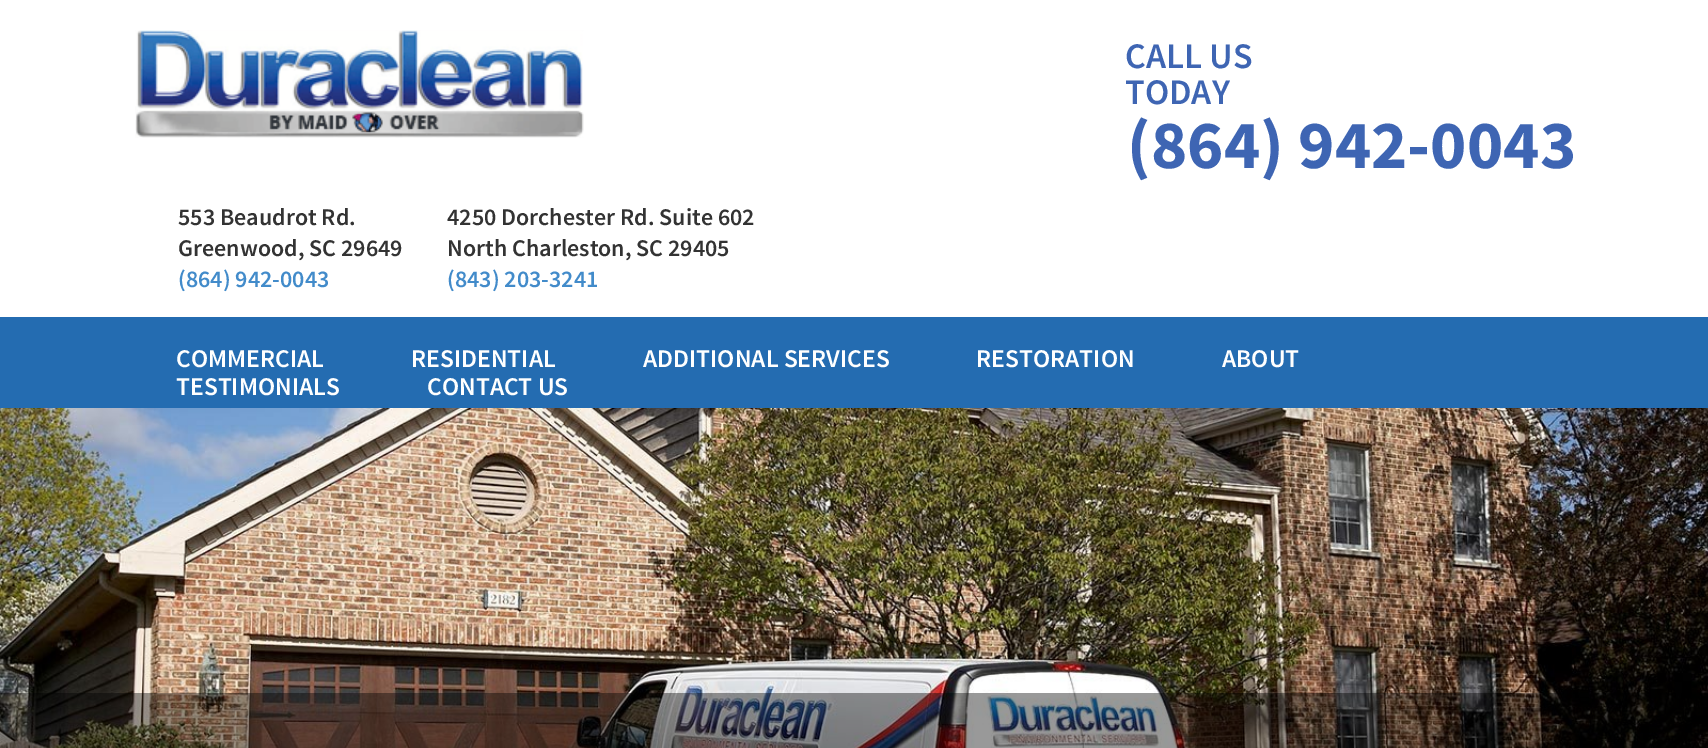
%!PS-Adobe-3.0
%%BoundingBox: 0 0 1708 748
%%LanguageLevel: 3
%%Pages: 1
%%EndComments
%%BeginProlog
/setink { 3 { 255 div 3 1 roll } repeat setrgbcolor } def
/usefont { [ exch dup neg 0 0 3 -1 roll 0 0 ] selectfont } def
/drawtext { setink usefont moveto show } def
/fillbox { setink rectfill } def
/setalpha { dup .setfillconstantalpha .setstrokeconstantalpha } def
/drawimage { 5 dict begin { /h /w /y /x /name } { exch def } forall
  gsave x y translate w h scale
  w h 8 [w 0 0 h 0 0] name (r) file false 3 colorimage grestore end } def
%%EndProlog
%%BeginSetup
<< /PageSize [1708 748] /PageUsesTransparency true >> setpagedevice
%%EndSetup
%%Page: 1 1
0 .pushpdf14devicefilter
0 748 translate 1 -1 scale
4 setmiterlimit
0 0 1708 748 255 255 255 fillbox
(CALL US) 1125 68 /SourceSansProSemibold-SemiBold 36 62 101 179 drawtext
(TODAY) 1125 104 /SourceSansProSemibold-SemiBold 36 62 101 179 drawtext
(\(864\) 942-0043) 1127 168 /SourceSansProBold-Bold 69 62 101 179 drawtext
(assets/img1.rgb) 135 30 449 108 drawimage
(553 Beaudrot Rd.) 178 225 /SourceSansProSemibold-SemiBold 24 51 51 51 drawtext
(Greenwood, SC 29649) 178 256 /SourceSansProSemibold-SemiBold 24 51 51 51 drawtext
(\(864\) 942-0043) 178 287 /SourceSansProSemibold-SemiBold 24 66 139 202 drawtext
(4250 Dorchester Rd. Suite 602) 447 225 /SourceSansProSemibold-SemiBold 24 51 51 51 drawtext
(North Charleston, SC 29405) 447 256 /SourceSansProSemibold-SemiBold 24 51 51 51 drawtext
(\(843\) 203-3241) 447 287 /SourceSansProSemibold-SemiBold 24 66 139 202 drawtext
0 317 1708 91 36 108 177 fillbox
(COMMERCIAL) 176 367 /SourceSansProSemibold-SemiBold 25.5 255 255 255 drawtext
(RESIDENTIAL) 411 367 /SourceSansProSemibold-SemiBold 25.5 255 255 255 drawtext
(ADDITIONAL SERVICES) 643 367 /SourceSansProSemibold-SemiBold 25.5 255 255 255 drawtext
(RESTORATION) 976 367 /SourceSansProSemibold-SemiBold 25.5 255 255 255 drawtext
(ABOUT) 1222 367 /SourceSansProSemibold-SemiBold 25.5 255 255 255 drawtext
(TESTIMONIALS) 176 395 /SourceSansProSemibold-SemiBold 25.5 255 255 255 drawtext
(CONTACT US) 427 395 /SourceSansProSemibold-SemiBold 25.5 255 255 255 drawtext
(assets/img2.rgb) 0 408 1708 340 drawimage
0.4 setalpha
0 693 1708 55 0 0 0 fillbox
.poppdf14devicefilter showpage
%%EOF
